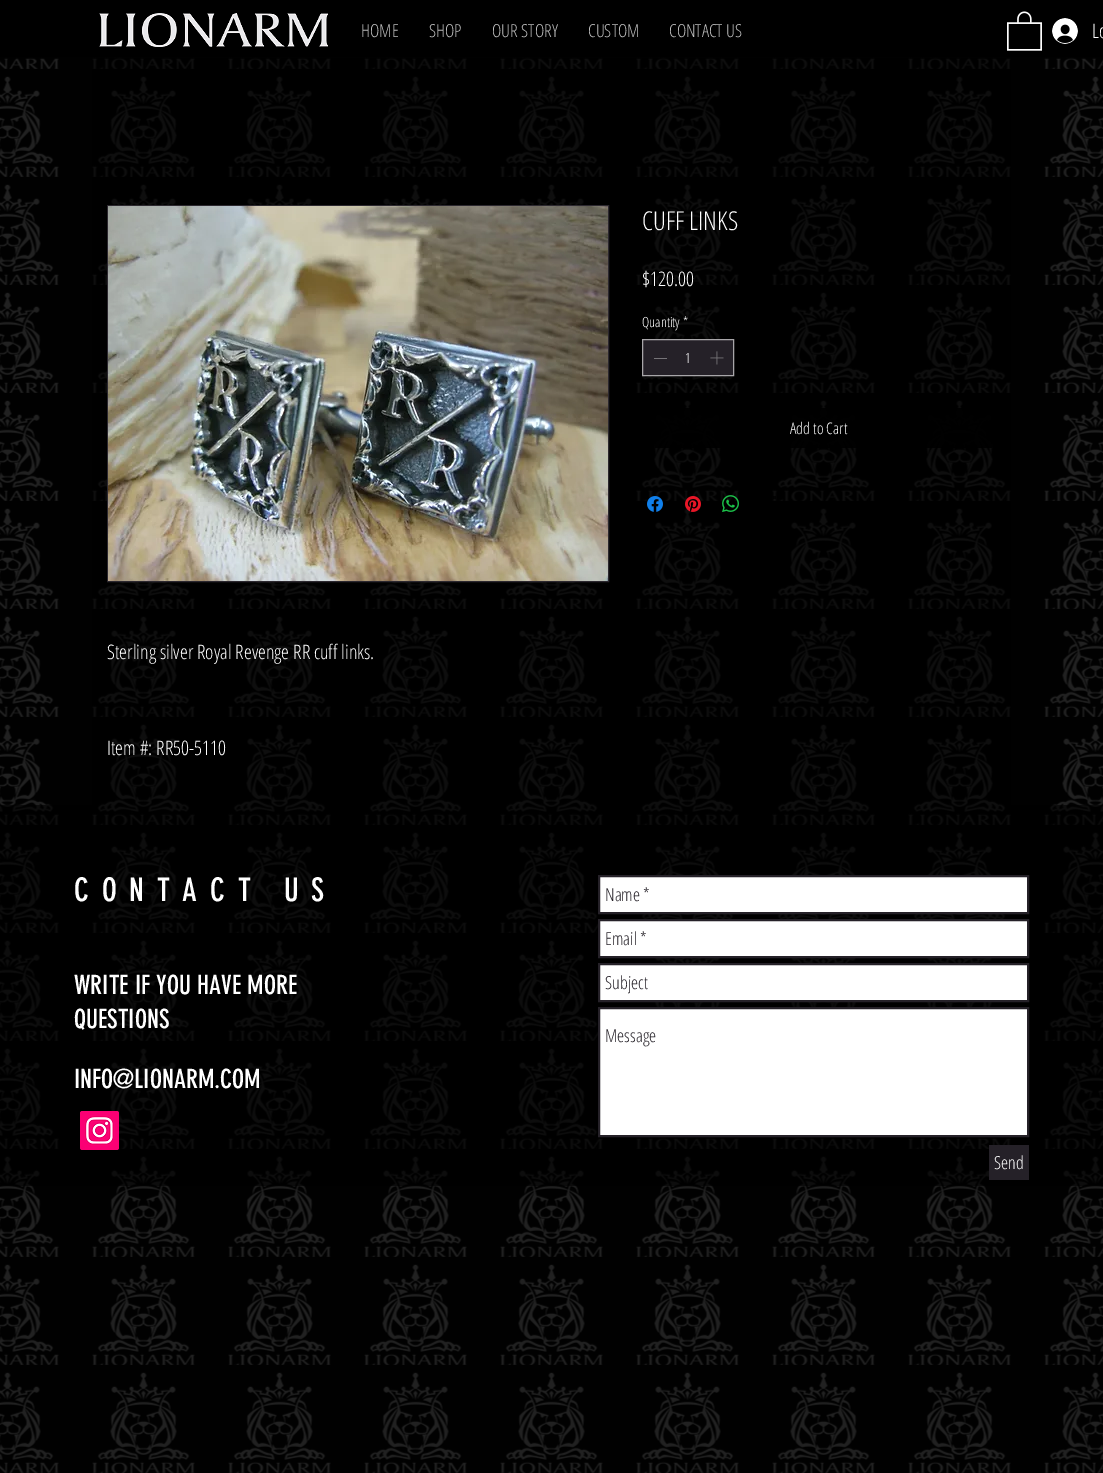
%!PS-Adobe-3.0
%%BoundingBox: 0 0 1103 1473
%%LanguageLevel: 3
%%Pages: 1
%%EndComments
%%BeginProlog
/setink { 3 { 255 div 3 1 roll } repeat setrgbcolor } def
/usefont { [ exch dup neg 0 0 3 -1 roll 0 0 ] selectfont } def
/drawtext { setink usefont moveto show } def
/fillbox { setink rectfill } def
/setalpha { dup .setfillconstantalpha .setstrokeconstantalpha } def
/drawimage { 5 dict begin { /h /w /y /x /name } { exch def } forall
  gsave x y translate w h scale
  w h 8 [w 0 0 h 0 0] name (r) file false 3 colorimage grestore end } def
%%EndProlog
%%BeginSetup
<< /PageSize [1103 1473] /PageUsesTransparency true >> setpagedevice
%%EndSetup
%%Page: 1 1
0 .pushpdf14devicefilter
0 1473 translate 1 -1 scale
4 setmiterlimit
0 0 1103 1473 0 0 0 fillbox
(assets/img1.rgb) 99 13 229 34 drawimage
(HOME) 361 37 /OpenSansCondensed-Light 18 189 189 189 drawtext
(SHOP) 429 37 /OpenSansCondensed-Light 18 189 189 189 drawtext
(OUR STORY) 492 37 /OpenSansCondensed-Light 18 189 189 189 drawtext
(CUSTOM) 588 37 /OpenSansCondensed-Light 18 189 189 189 drawtext
(CONTACT US) 669 37 /OpenSansCondensed-Light 18 189 189 189 drawtext
(assets/img2.rgb) 1007 11 35 40 drawimage
(assets/img3.rgb) 1052 18 26 26 drawimage
(Lo) 1092 38 /OpenSansCondensed-Light 20 255 255 255 drawtext
(assets/img10.rgb) 0 57 1103 1416 drawimage
0.56 setalpha
92 58 919 747 0 0 0 fillbox
1 setalpha
(CUFF LINKS) 642 230 /OpenSansCondensed-Light 26 255 255 255 drawtext
($120.00) 642 286 /OpenSansCondensed-Light 20 255 255 255 drawtext
(Quantity) 642 327 /OpenSansCondensed-Light 14 255 255 255 drawtext
(*) 683 327 /OpenSansCondensed-Light 14 255 255 255 drawtext
37 33 40 setink
642.5 339.5 moveto 733.5 339.5 lineto 733.5 375.5 lineto 642.5 375.5 lineto closepath gsave fill grestore
168 166 169 setink
stroke
654 358 13 1 118 116 120 fillbox
(1) 685 363 /OpenSansCondensed-Light 14 255 255 255 drawtext
(assets/img4.rgb) 710 351 14 14 drawimage
0.92 setalpha
655 408 337 40 0 0 0 fillbox
1 setalpha
(Add to Cart) 790 434 /OpenSansCondensed-Light 16 255 255 255 drawtext
(assets/img5.rgb) 647 496 16 16 drawimage
(assets/img6.rgb) 685 496 16 16 drawimage
(assets/img7.rgb) 722 495 17 17 drawimage
0.79 setalpha
773 496 3 3 0 0 0 fillbox
0.94 setalpha
47 43 50 setink
107.5 205.5 501 376 rectstroke
1 setalpha
(assets/img8.rgb) 108 206 500 375 drawimage
(Sterling silver Royal Revenge RR cuff links.) 107 659 /OpenSansCondensed-Light 20 255 255 255 drawtext
(Item #: RR50-5110) 107 755 /OpenSansCondensed-Light 20 255 255 255 drawtext
0.6 setalpha
0 805 1103 381 0 0 0 fillbox
/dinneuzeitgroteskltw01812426-Regular 32 usefont
1 setalpha
255 255 255 setink
74 901 moveto 12.75 0 (CONTACT US) ashow
599 876 moveto 1028 876 lineto 1028 913 lineto 599 913 lineto closepath gsave fill grestore
37 33 40 setink
2 setlinewidth
stroke
(Name *) 605 901 /OpenSansCondensed-Light 18 37 33 40 drawtext
255 255 255 setink
599 920 moveto 1028 920 lineto 1028 957 lineto 599 957 lineto closepath gsave fill grestore
37 33 40 setink
stroke
(Email *) 605 945 /OpenSansCondensed-Light 18 37 33 40 drawtext
255 255 255 setink
599 964 moveto 1028 964 lineto 1028 1001 lineto 599 1001 lineto closepath gsave fill grestore
37 33 40 setink
stroke
(Subject) 605 989 /OpenSansCondensed-Light 18 37 33 40 drawtext
255 255 255 setink
599 1008 moveto 1028 1008 lineto 1028 1136 lineto 599 1136 lineto closepath gsave fill grestore
37 33 40 setink
stroke
(Message) 605 1042 /OpenSansCondensed-Light 18 37 33 40 drawtext
989 1145 40 35 37 33 40 fillbox
(Send) 994 1169 /OpenSansCondensed-Light 18 255 255 255 drawtext
(WRITE IF YOU HAVE MORE) 74 994 /dinneuzeitgroteskltw01812426-Regular 26 255 255 255 drawtext
(QUESTIONS) 74 1028 /dinneuzeitgroteskltw01812426-Regular 26 255 255 255 drawtext
(INFO@LIONARM.COM) 74 1088 /dinneuzeitgroteskltw01812426-Regular 26 255 255 255 drawtext
(assets/img9.rgb) 80 1111 39 39 drawimage
.poppdf14devicefilter showpage
%%EOF
